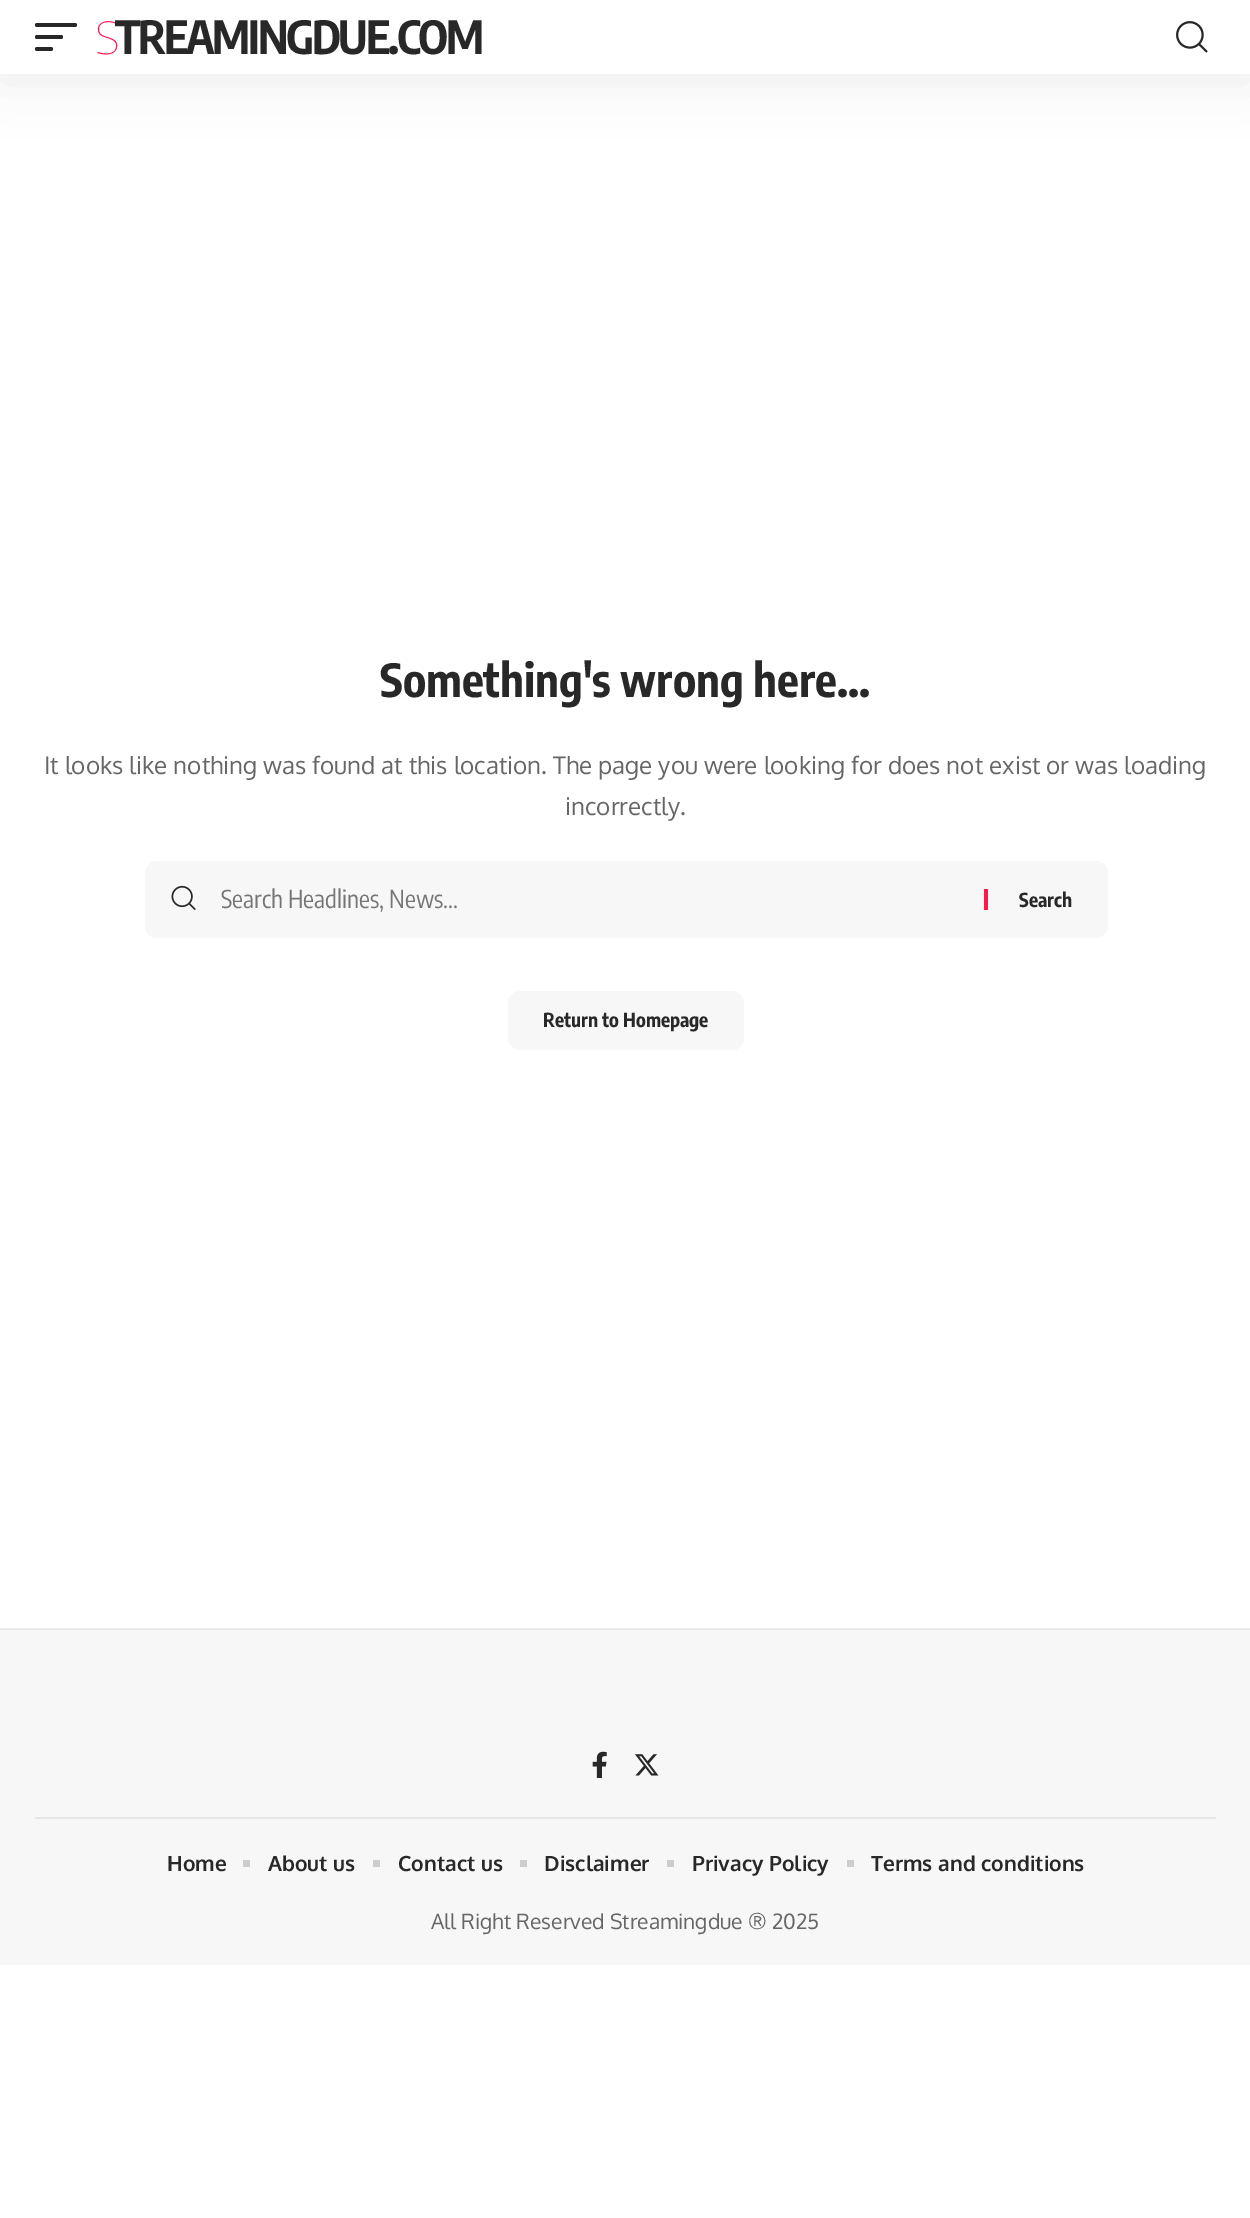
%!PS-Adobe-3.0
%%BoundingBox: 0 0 1250 2218
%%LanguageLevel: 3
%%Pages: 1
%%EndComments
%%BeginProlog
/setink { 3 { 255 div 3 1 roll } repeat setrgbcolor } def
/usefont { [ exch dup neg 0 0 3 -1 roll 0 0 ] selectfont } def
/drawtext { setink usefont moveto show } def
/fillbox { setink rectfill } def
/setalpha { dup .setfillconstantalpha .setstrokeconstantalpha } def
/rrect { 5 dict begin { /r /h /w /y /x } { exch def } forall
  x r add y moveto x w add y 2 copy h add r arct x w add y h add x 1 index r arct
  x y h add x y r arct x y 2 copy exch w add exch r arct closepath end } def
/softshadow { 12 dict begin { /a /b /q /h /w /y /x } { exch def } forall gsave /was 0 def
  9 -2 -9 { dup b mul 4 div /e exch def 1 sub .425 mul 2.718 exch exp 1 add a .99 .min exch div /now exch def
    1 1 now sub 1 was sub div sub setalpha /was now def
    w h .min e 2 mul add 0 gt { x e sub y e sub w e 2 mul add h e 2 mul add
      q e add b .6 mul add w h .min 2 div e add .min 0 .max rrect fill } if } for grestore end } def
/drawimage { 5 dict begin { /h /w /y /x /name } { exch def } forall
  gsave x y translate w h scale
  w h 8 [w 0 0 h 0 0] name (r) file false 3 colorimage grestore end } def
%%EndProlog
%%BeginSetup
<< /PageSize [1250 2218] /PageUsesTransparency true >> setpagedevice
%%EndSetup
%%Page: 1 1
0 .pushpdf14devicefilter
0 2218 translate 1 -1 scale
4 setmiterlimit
0 0 1250 2218 255 255 255 fillbox
0 1630 1250 335 247 247 247 fillbox
0 0 0 setink
0 7 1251 74 0 26 0.07 softshadow
0 0 1250 74 255 255 255 fillbox
40 40 40 setink
35 23 42 4 2 rrect fill
35 35 28 4 2 rrect fill
35 47 18 4 2 rrect fill
/NotoSans-Thin 45.5 usefont
255 24 78 setink
95 54 moveto -2.25 0 (S) ashow
/EncodeSansCondensed-Bold 45.5 usefont
40 40 40 setink
115 54 moveto -2.25 0 (TREAMINGDUE.COM) ashow
(assets/img1.rgb) 1176 21 32 32 drawimage
(Something's wrong here...) 380 697 /EncodeSansCondensed-Bold 45.5 40 40 40 drawtext
(It looks like nothing was found at this location. The page you were looking for does not exist or was loading) 44 774 /Oxygen-Regular 24.15 102 102 102 drawtext
(incorrectly.) 565 815 /Oxygen-Regular 24.15 102 102 102 drawtext
247 247 247 setink
145 861 963 77 12 rrect fill
(assets/img2.rgb) 171 885 25 25 drawimage
(Search Headlines, News...) 221 908 /EncodeSansCondensed-Regular 24.5 117 117 117 drawtext
984 889 4 21 255 24 78 fillbox
(Search) 1019 907 /EncodeSansCondensed-Bold 19.25 40 40 40 drawtext
247 247 247 setink
508 991 236 59 12 rrect fill
(Return to Homepage) 543 1027 /EncodeSansCondensed-Bold 19.25 40 40 40 drawtext
0 1628 1250 1 237 237 237 fillbox
0 1629 1250 1 230 230 230 fillbox
(assets/img3.rgb) 592 1751 15 27 drawimage
(assets/img4.rgb) 635 1754 24 22 drawimage
35 1817 1181 2 230 230 230 fillbox
(Home) 167 1871 /Oxygen-Bold 21 40 40 40 drawtext
243 1860 7 7 205 205 205 fillbox
(About us) 268 1871 /Oxygen-Bold 21 40 40 40 drawtext
373 1860 7 7 205 205 205 fillbox
(Contact us) 398 1871 /Oxygen-Bold 21 40 40 40 drawtext
520 1860 7 7 205 205 205 fillbox
(Disclaimer) 544 1871 /Oxygen-Bold 21 40 40 40 drawtext
667 1860 7 7 205 205 205 fillbox
(Privacy Policy) 692 1871 /Oxygen-Bold 21 40 40 40 drawtext
847 1860 7 7 205 205 205 fillbox
(Terms and conditions) 871 1871 /Oxygen-Bold 21 40 40 40 drawtext
(All Right Reserved Streamingdue ® 2025) 431 1929 /Oxygen-Regular 21 102 102 102 drawtext
.poppdf14devicefilter showpage
%%EOF
